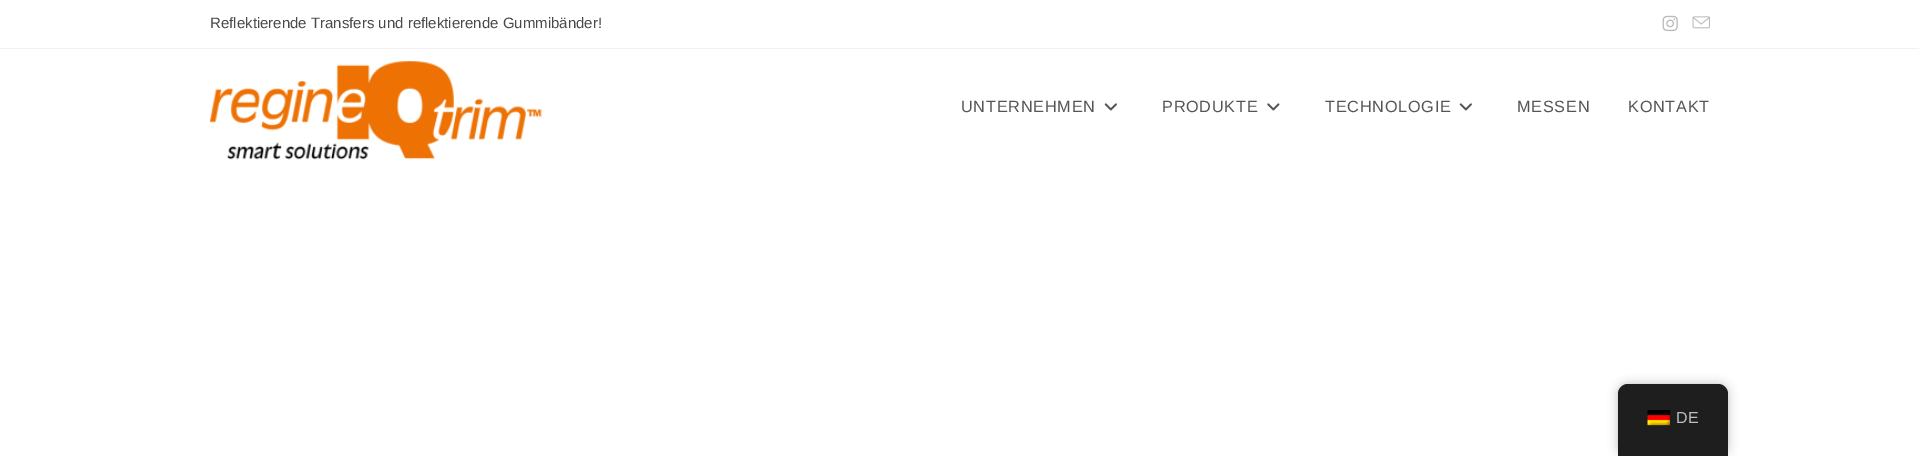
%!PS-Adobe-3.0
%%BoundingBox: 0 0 1919 456
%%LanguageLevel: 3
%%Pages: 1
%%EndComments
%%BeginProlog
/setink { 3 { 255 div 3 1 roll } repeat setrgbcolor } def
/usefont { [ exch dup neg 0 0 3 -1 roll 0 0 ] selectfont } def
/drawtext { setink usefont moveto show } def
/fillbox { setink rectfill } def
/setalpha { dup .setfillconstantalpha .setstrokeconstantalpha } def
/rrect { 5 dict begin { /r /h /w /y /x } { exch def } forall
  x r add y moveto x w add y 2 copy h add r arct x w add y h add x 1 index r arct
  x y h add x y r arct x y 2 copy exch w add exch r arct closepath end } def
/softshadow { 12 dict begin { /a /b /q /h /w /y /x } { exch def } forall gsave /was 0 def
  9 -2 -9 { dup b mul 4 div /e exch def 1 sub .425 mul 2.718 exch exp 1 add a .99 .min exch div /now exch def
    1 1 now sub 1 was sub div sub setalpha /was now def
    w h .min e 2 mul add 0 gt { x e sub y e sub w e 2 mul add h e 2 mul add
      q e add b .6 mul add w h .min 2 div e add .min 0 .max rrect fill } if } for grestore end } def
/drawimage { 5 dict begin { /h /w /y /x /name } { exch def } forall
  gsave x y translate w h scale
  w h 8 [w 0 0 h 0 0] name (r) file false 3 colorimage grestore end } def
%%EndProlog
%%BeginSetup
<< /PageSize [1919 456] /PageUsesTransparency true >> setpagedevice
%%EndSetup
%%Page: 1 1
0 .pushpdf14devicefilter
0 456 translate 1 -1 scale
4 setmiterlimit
0 0 1919 456 255 255 255 fillbox
0 48 1919 1 241 241 241 fillbox
(Reflektierende Transfers und reflektierende Gummibänder!) 210 28 /LiberationSans-Regular 15 74 74 74 drawtext
(assets/img1.rgb) 1662 15 16 17 drawimage
(assets/img2.rgb) 1692 16 18 13 drawimage
(assets/img3.rgb) 210 61 332 99 drawimage
/LiberationSans-Regular 16.25 usefont
85 85 85 setink
961 112 moveto 0.75 0 (UNTERNEHMEN) ashow
(assets/img4.rgb) 1104 103 13 8 drawimage
1162 112 moveto 0.75 0 (PRODUKTE) ashow
(assets/img5.rgb) 1267 103 13 8 drawimage
1325 112 moveto 0.75 0 (TECHNOLOGIE) ashow
(assets/img4.rgb) 1459 103 13 8 drawimage
1517 112 moveto 0.75 0 (MESSEN) ashow
1628 112 moveto 0.75 0 (KONTAKT) ashow
0 0 0 setink
1618 384 110 72 10 5 0.25 softshadow
30 30 30 setink
1628 384 moveto 1718 384 lineto 1723.5 384 1728 388.5 1728 394 curveto 1728 456 lineto 1618 456 lineto 1618 394 lineto 1618 388.5 1622.5 384 1628 384 curveto closepath fill
(assets/img6.rgb) 1647 410 23 16 drawimage
(DE) 1676 423 /LiberationSans-Regular 16 189 189 189 drawtext
.poppdf14devicefilter showpage
%%EOF
